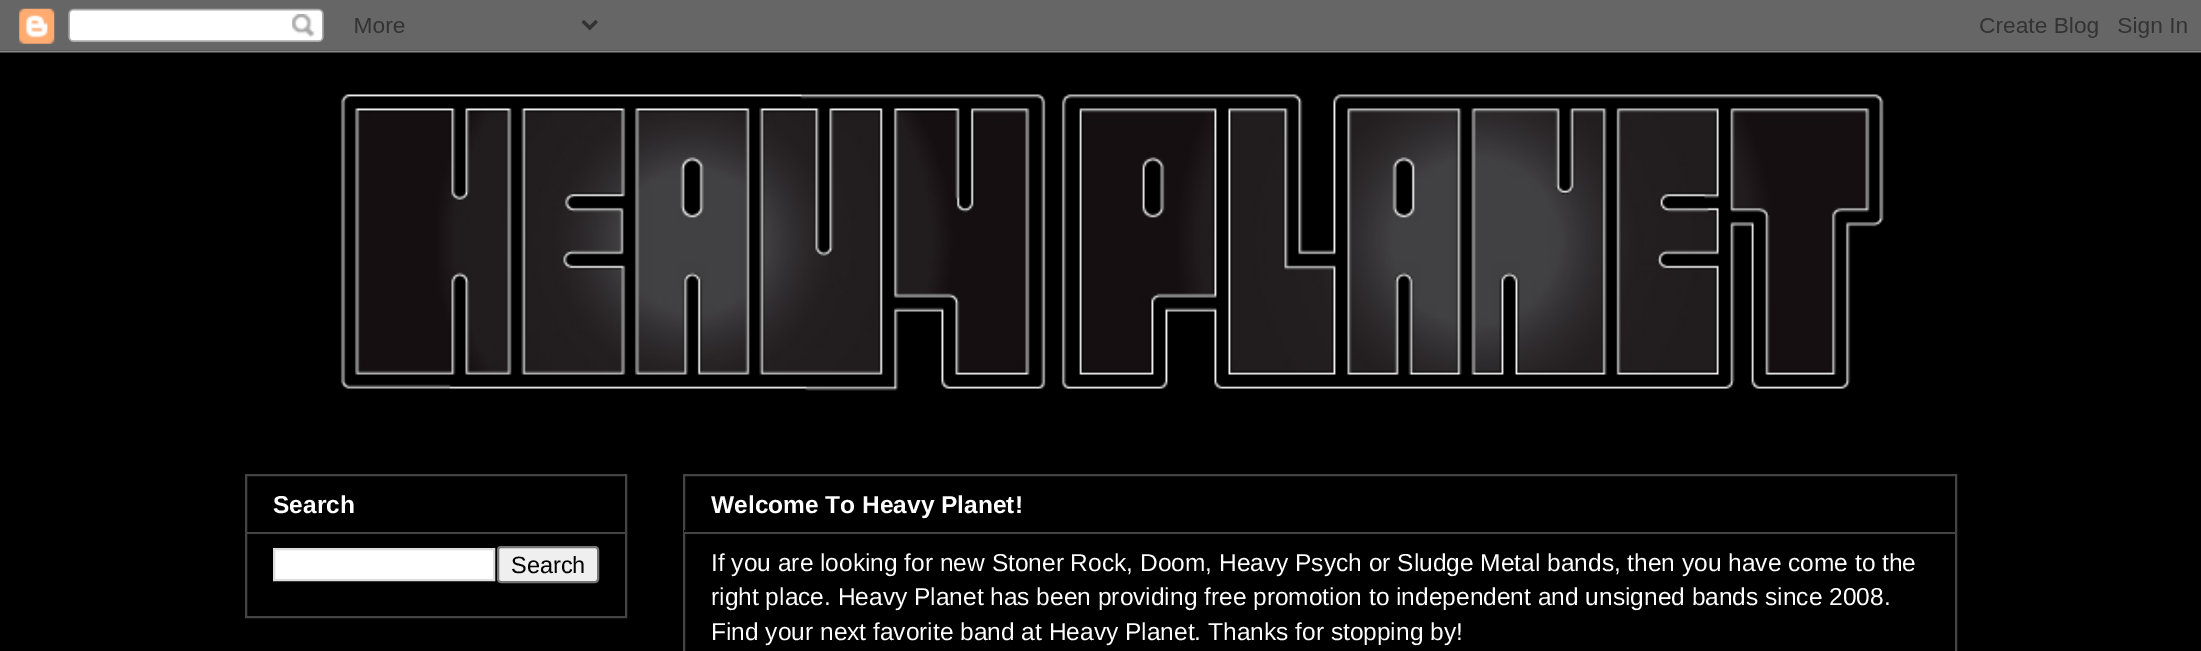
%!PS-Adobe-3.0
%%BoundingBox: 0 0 2201 651
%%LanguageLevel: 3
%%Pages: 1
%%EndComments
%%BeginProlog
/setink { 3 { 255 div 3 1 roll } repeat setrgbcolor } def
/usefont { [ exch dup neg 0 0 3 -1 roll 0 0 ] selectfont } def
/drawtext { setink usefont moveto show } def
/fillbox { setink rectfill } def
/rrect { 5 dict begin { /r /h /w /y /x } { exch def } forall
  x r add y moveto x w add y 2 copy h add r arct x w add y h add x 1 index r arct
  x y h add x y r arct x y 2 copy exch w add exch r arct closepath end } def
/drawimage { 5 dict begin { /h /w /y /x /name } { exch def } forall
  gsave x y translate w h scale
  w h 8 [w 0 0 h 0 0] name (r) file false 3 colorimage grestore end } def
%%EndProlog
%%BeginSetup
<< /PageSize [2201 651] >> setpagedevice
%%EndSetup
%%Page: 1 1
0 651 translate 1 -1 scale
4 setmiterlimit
0 0 2201 651 0 0 0 fillbox
(assets/img1.rgb) 0 0 2201 53 drawimage
(assets/img2.rgb) 340 94 1544 297 drawimage
68 68 68 setink
2 setlinewidth
246 475 380 142 rectstroke
(Search) 273 513 /LiberationSans-Bold 24.5 255 255 255 drawtext
247 532 378 2 68 68 68 fillbox
255 255 255 setink
274 549 moveto 494 549 lineto 494 580 lineto 274 580 lineto closepath gsave fill grestore
221 221 221 setink
stroke
239 239 239 setink
498 547 100 35 3 rrect gsave fill grestore
118 118 118 setink
stroke
(Search) 511 573 /LiberationSans-Regular 23.5 0 0 0 drawtext
68 68 68 setink
684 475 1272 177 rectstroke
684 530 1 2 0 0 0 fillbox
(Welcome To Heavy Planet!) 711 513 /LiberationSans-Bold 24.5 255 255 255 drawtext
684 532 1271 2 68 68 68 fillbox
(If you are looking for new Stoner Rock, Doom, Heavy Psych or Sludge Metal bands, then you have come to the) 711 571 /LiberationSans-Regular 24.5 255 255 255 drawtext
(right place. Heavy Planet has been providing free promotion to independent and unsigned bands since 2008.) 711 605 /LiberationSans-Regular 24.5 255 255 255 drawtext
(Find your next favorite band at Heavy Planet. Thanks for stopping by!) 711 640 /LiberationSans-Regular 24.5 255 255 255 drawtext
showpage
%%EOF
